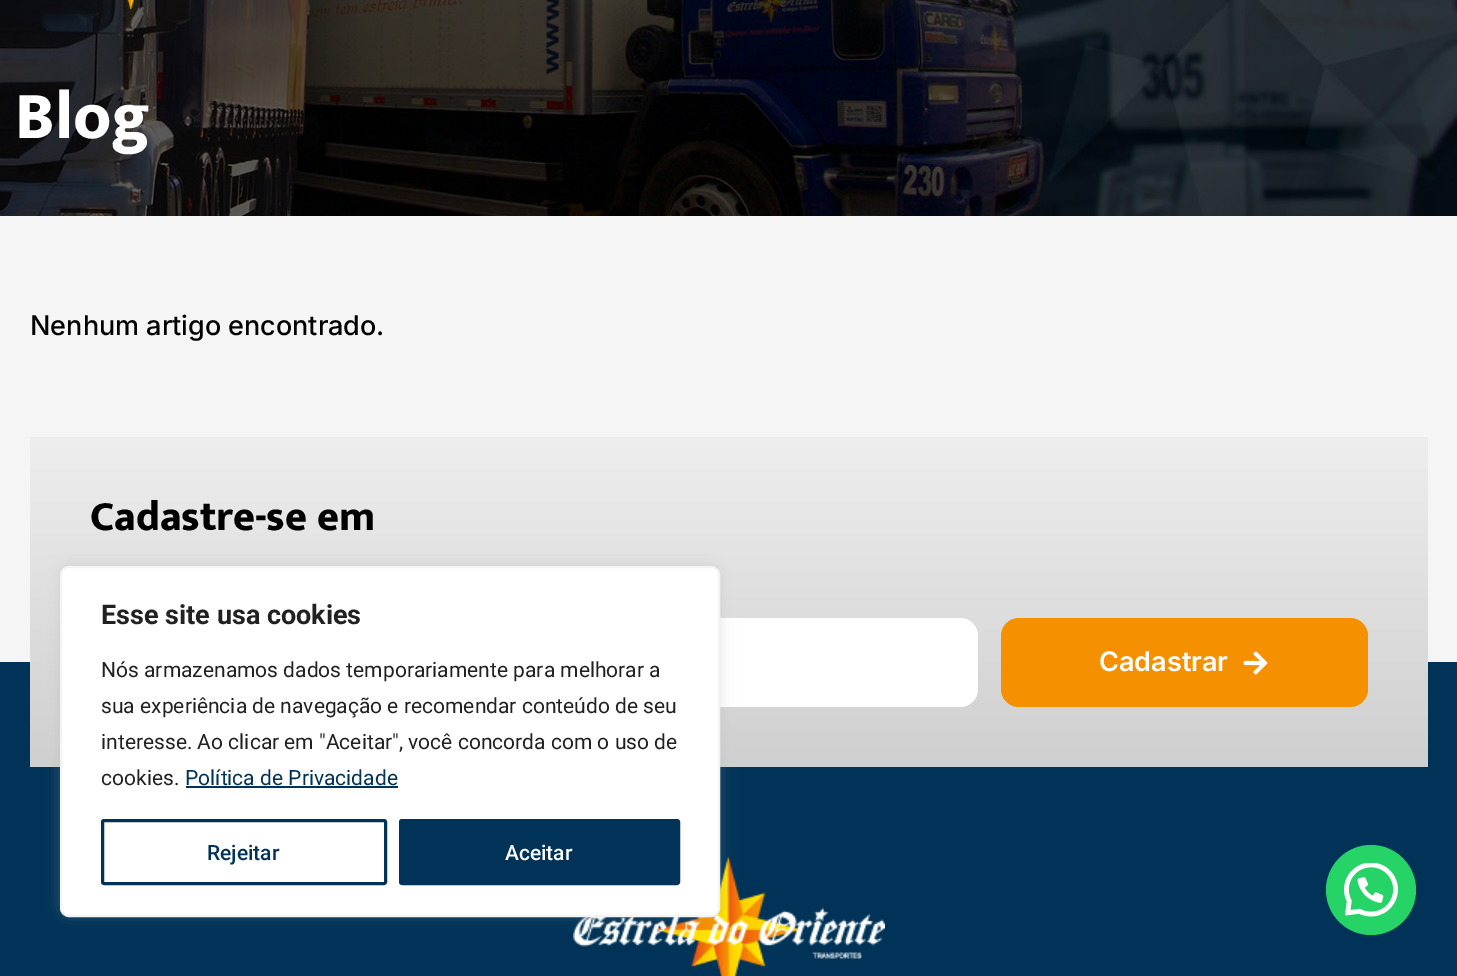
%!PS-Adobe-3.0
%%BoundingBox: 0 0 1457 976
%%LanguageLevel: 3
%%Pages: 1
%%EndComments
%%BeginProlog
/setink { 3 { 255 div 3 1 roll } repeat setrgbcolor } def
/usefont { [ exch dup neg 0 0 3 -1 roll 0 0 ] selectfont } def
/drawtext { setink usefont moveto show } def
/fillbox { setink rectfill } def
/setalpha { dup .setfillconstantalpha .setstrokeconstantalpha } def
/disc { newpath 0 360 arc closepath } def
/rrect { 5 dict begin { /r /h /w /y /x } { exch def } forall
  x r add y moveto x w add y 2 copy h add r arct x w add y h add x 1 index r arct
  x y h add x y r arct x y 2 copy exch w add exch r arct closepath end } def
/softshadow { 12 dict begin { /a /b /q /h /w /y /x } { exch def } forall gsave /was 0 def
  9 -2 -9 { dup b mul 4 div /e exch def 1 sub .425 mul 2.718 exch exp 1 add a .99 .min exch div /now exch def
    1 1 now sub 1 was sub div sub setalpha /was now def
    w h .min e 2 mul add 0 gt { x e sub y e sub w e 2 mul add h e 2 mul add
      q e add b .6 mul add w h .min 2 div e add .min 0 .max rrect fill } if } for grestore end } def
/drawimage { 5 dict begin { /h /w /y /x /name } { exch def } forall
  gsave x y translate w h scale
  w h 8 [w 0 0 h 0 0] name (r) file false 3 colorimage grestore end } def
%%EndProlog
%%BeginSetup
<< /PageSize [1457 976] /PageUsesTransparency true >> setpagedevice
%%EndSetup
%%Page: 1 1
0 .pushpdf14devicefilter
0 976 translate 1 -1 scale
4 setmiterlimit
0 0 1457 976 245 245 245 fillbox
(assets/img2.rgb) 0 0 1457 216 drawimage
(assets/img1.rgb) 127 0 7 9 drawimage
(Blog) 15 138 /Mukta-ExtraBold 68 255 255 255 drawtext
(Nenhum artigo encontrado.) 30 335 /Inter-Medium 27 0 0 0 drawtext
0 662 1457 314 0 51 87 fillbox
gsave 30 437 moveto 1428 437 lineto 1428 767 lineto 30 767 lineto closepath clip newpath
<< /ShadingType 2 /ColorSpace /DeviceRGB /Coords [729 436 729 767] /Extend [true true] /Function << /FunctionType 2 /Domain [0 1] /C0 [0.933 0.933 0.933] /C1 [0.812 0.812 0.812] /N 1 >> >> shfill grestore
(Cadastre-se em) 90 530 /Mukta-ExtraBold 42 0 0 0 drawtext
255 255 255 setink
90 618 888 89 18 rrect fill
245 144 0 setink
1001 618 367 89 18 rrect fill
(Cadastrar) 1099 671 /Inter-SemiBold 27 255 255 255 drawtext
(assets/img3.rgb) 1243 651 25 24 drawimage
(assets/img4.rgb) 573 856 312 120 drawimage
172 171 171 setink
60 564 660 351 9 7.5 0.3 softshadow
255 255 255 setink
61 567 658 349 8 rrect gsave fill grestore
244 244 244 setink
2 setlinewidth
stroke
(Esse site usa cookies) 101 624 /Roboto-Bold 27 33 33 33 drawtext
(Nós armazenamos dados temporariamente para melhorar a) 101 677 /Roboto-Regular 21 33 33 33 drawtext
(sua experiência de navegação e recomendar conteúdo de seu) 101 713 /Roboto-Regular 21 33 33 33 drawtext
(interesse. Ao clicar em "Aceitar", você concorda com o uso de) 101 749 /Roboto-Regular 21 33 33 33 drawtext
(cookies.) 101 785 /Roboto-Regular 21 33 33 33 drawtext
(Política de Privacidade) 185 785 /Roboto-Regular 21 0 51 87 drawtext
186 786 212 2 0 51 87 fillbox
3 setlinewidth
102.5 820.5 283 63 1.5 rrect stroke
(Rejeitar) 207 860 /Roboto-Medium 21 0 51 87 drawtext
400.5 820.5 278 63 1.5 rrect gsave fill grestore
stroke
(Aceitar) 505 860 /Roboto-Medium 21 255 255 255 drawtext
37 211 102 setink
1371 890 45 disc fill
(assets/img5.rgb) 1344 863 54 54 drawimage
.poppdf14devicefilter showpage
%%EOF
